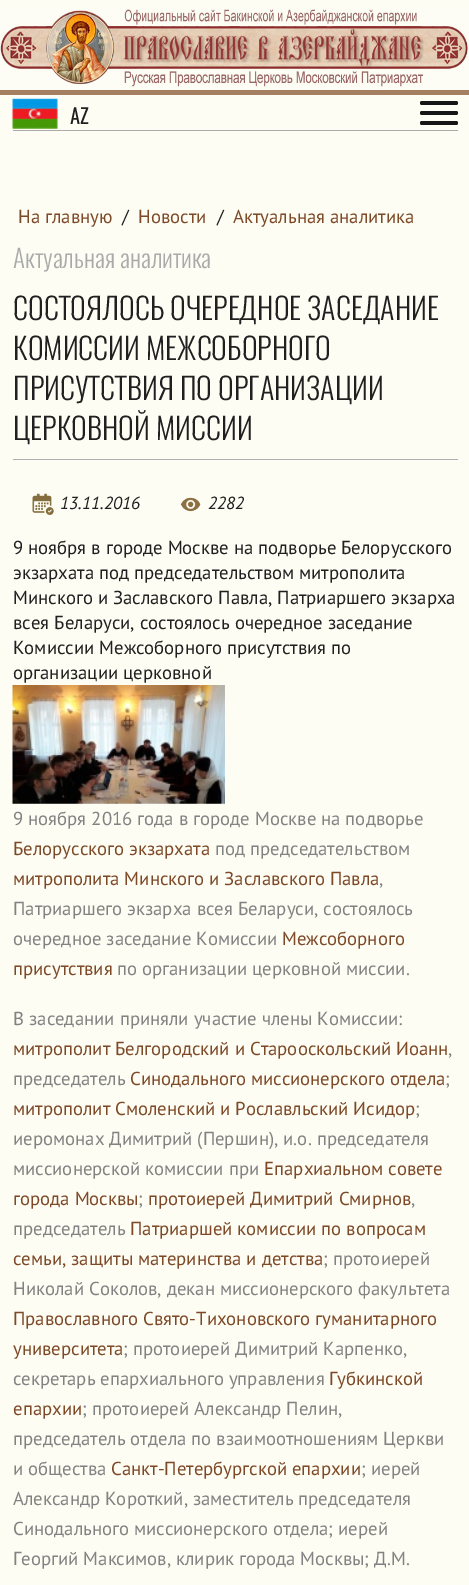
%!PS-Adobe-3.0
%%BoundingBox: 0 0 469 1585
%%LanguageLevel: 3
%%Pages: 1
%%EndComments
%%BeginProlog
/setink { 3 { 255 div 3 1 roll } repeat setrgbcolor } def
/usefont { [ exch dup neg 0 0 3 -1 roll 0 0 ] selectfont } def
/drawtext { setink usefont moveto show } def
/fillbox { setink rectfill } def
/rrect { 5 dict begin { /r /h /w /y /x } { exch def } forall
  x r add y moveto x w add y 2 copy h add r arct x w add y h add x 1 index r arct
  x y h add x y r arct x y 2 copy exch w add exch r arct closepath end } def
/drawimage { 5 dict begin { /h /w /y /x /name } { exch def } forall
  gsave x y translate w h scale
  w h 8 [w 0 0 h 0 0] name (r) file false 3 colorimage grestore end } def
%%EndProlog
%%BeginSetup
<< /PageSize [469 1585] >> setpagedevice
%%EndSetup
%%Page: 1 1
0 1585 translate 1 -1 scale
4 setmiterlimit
0 0 469 1585 253 253 244 fillbox
0 90 469 5 165 127 98 fillbox
(assets/img1.rgb) 0 9 469 81 drawimage
13 130 445 1 170 170 170 fillbox
(assets/img2.rgb) 12 98 46 31 drawimage
(AZ) 70 124 /Oswald-Bold 20 32 32 32 drawtext
22 22 22 setink
420 101 38 4 2 rrect fill
420 111 38 4 2 rrect fill
420 121 38 4 2 rrect fill
(На главную) 18 223 /PTSans-Regular 18.75 125 73 39 drawtext
(/) 122 223 /PTSans-Regular 18.75 32 32 32 drawtext
(Новости) 138 223 /PTSans-Regular 18.75 125 73 39 drawtext
(/) 217 223 /PTSans-Regular 18.75 32 32 32 drawtext
(Актуальная аналитика) 233 223 /PTSans-Regular 18.75 125 73 39 drawtext
(Актуальная аналитика) 13 268 /Oswald-Light 25 170 170 170 drawtext
13 459 445 1 174 174 174 fillbox
(СОСТОЯЛОСЬ ОЧЕРЕДНОЕ ЗАСЕДАНИЕ) 13 320 /Oswald-Light 30 32 32 32 drawtext
(КОМИССИИ МЕЖСОБОРНОГО) 13 360 /Oswald-Light 30 32 32 32 drawtext
(ПРИСУТСТВИЯ ПО ОРГАНИЗАЦИИ) 13 400 /Oswald-Light 30 32 32 32 drawtext
(ЦЕРКОВНОЙ МИССИИ) 13 440 /Oswald-Light 30 32 32 32 drawtext
(assets/img3.rgb) 32 493 22 22 drawimage
(13.11.2016) 60 509 /PTSans-Italic 17.5 32 32 32 drawtext
(assets/img4.rgb) 180 497 21 15 drawimage
(2282) 208 509 /PTSans-Italic 17.5 32 32 32 drawtext
(9 ноября в городе Москве на подворье Белорусского) 13 554 /PTSans-Regular 18.75 32 32 32 drawtext
(экзархата под председательством митрополита) 13 579 /PTSans-Regular 18.75 32 32 32 drawtext
(Минского и Заславского Павла, Патриаршего экзарха) 13 604 /PTSans-Regular 18.75 32 32 32 drawtext
(всея Беларуси, состоялось очередное заседание) 13 629 /PTSans-Regular 18.75 32 32 32 drawtext
(Комиссии Межсоборного присутствия по) 13 654 /PTSans-Regular 18.75 32 32 32 drawtext
(организации церковной) 13 679 /PTSans-Regular 18.75 32 32 32 drawtext
(assets/img5.rgb) 12 685 213 119 drawimage
(9 ноября 2016 года в городе Москве на подворье) 13 825 /PTSans-Regular 18.75 130 130 130 drawtext
(Белорусского экзархата) 13 855 /PTSans-Regular 18.75 125 73 39 drawtext
(под председательством) 215 855 /PTSans-Regular 18.75 130 130 130 drawtext
(митрополита Минского и Заславского Павла) 13 885 /PTSans-Regular 18.75 125 73 39 drawtext
(,) 379 885 /PTSans-Regular 18.75 130 130 130 drawtext
(Патриаршего экзарха всея Беларуси, состоялось) 13 915 /PTSans-Regular 18.75 130 130 130 drawtext
(очередное заседание Комиссии) 13 945 /PTSans-Regular 18.75 130 130 130 drawtext
(Межсоборного) 282 945 /PTSans-Regular 18.75 125 73 39 drawtext
(присутствия) 13 975 /PTSans-Regular 18.75 125 73 39 drawtext
(по организации церковной миссии.) 117 975 /PTSans-Regular 18.75 130 130 130 drawtext
(В заседании приняли участие члены Комиссии:) 13 1025 /PTSans-Regular 18.75 130 130 130 drawtext
(митрополит Белгородский и Старооскольский Иоанн) 13 1055 /PTSans-Regular 18.75 125 73 39 drawtext
(,) 448 1055 /PTSans-Regular 18.75 130 130 130 drawtext
(председатель) 13 1085 /PTSans-Regular 18.75 130 130 130 drawtext
(Синодального миссионерского отдела) 130 1085 /PTSans-Regular 18.75 125 73 39 drawtext
(;) 445 1085 /PTSans-Regular 18.75 130 130 130 drawtext
(митрополит Смоленский и Рославльский Исидор) 13 1115 /PTSans-Regular 18.75 125 73 39 drawtext
(;) 415 1115 /PTSans-Regular 18.75 130 130 130 drawtext
(иеромонах Димитрий \(Першин\), и.о. председателя) 13 1145 /PTSans-Regular 18.75 130 130 130 drawtext
(миссионерской комиссии при) 13 1175 /PTSans-Regular 18.75 130 130 130 drawtext
(Епархиальном совете) 264 1175 /PTSans-Regular 18.75 125 73 39 drawtext
(города Москвы) 13 1205 /PTSans-Regular 18.75 125 73 39 drawtext
(;) 138 1205 /PTSans-Regular 18.75 130 130 130 drawtext
(протоиерей Димитрий Смирнов) 148 1205 /PTSans-Regular 18.75 125 73 39 drawtext
(,) 411 1205 /PTSans-Regular 18.75 130 130 130 drawtext
(председатель) 13 1235 /PTSans-Regular 18.75 130 130 130 drawtext
(Патриаршей комиссии по вопросам) 130 1235 /PTSans-Regular 18.75 125 73 39 drawtext
(семьи, защиты материнства и детства) 13 1265 /PTSans-Regular 18.75 125 73 39 drawtext
(; протоиерей) 323 1265 /PTSans-Regular 18.75 130 130 130 drawtext
(Николай Соколов, декан миссионерского факультета) 13 1295 /PTSans-Regular 18.75 130 130 130 drawtext
(Православного Свято-Тихоновского гуманитарного) 13 1325 /PTSans-Regular 18.75 125 73 39 drawtext
(университета) 13 1355 /PTSans-Regular 18.75 125 73 39 drawtext
(; протоиерей Димитрий Карпенко,) 123 1355 /PTSans-Regular 18.75 130 130 130 drawtext
(секретарь епархиального управления) 13 1385 /PTSans-Regular 18.75 130 130 130 drawtext
(Губкинской) 329 1385 /PTSans-Regular 18.75 125 73 39 drawtext
(епархии) 13 1415 /PTSans-Regular 18.75 125 73 39 drawtext
(; протоиерей Александр Пелин,) 82 1415 /PTSans-Regular 18.75 130 130 130 drawtext
(председатель отдела по взаимоотношениям Церкви) 13 1445 /PTSans-Regular 18.75 130 130 130 drawtext
(и общества) 13 1475 /PTSans-Regular 18.75 130 130 130 drawtext
(Санкт-Петербургской епархии) 111 1475 /PTSans-Regular 18.75 125 73 39 drawtext
(; иерей) 361 1475 /PTSans-Regular 18.75 130 130 130 drawtext
(Александр Короткий, заместитель председателя) 13 1505 /PTSans-Regular 18.75 130 130 130 drawtext
(Синодального миссионерского отдела; иерей) 13 1535 /PTSans-Regular 18.75 130 130 130 drawtext
(Георгий Максимов, клирик города Москвы; Д.М.) 13 1565 /PTSans-Regular 18.75 130 130 130 drawtext
showpage
%%EOF
